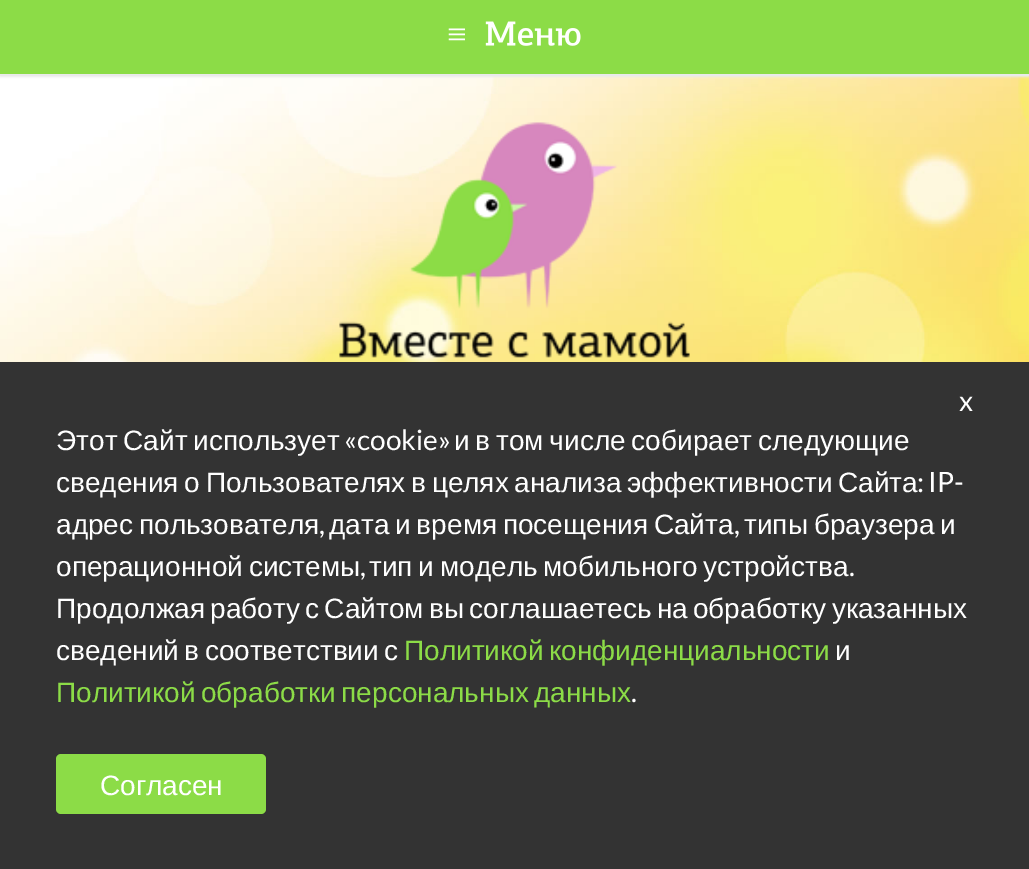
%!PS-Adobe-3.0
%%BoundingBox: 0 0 1029 869
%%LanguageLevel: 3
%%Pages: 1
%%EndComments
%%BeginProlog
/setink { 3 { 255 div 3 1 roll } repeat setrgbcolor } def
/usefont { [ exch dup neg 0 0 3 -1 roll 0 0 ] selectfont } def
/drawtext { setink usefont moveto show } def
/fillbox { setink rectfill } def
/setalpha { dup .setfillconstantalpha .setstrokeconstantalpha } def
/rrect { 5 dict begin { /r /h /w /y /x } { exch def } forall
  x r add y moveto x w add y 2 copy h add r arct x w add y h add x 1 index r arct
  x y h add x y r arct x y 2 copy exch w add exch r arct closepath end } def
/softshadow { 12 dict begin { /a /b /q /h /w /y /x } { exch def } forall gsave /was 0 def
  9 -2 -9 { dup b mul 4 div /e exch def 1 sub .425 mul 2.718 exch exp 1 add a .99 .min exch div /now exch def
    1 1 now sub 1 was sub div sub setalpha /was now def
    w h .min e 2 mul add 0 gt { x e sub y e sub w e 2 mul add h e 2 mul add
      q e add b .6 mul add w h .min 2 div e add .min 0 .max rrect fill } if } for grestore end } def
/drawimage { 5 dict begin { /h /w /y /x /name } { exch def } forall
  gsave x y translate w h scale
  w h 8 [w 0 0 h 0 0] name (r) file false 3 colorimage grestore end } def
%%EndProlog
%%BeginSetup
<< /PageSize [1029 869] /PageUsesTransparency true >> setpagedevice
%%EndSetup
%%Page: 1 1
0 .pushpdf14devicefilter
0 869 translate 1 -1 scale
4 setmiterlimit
0 0 1029 869 255 255 255 fillbox
(assets/img1.rgb) 0 76 1029 286 drawimage
234 234 234 setink
0 2 1029 75 0 1 1 softshadow
0 74 1029 2 234 234 234 fillbox
0 0 1029 74 140 220 71 fillbox
(≡) 447 46 /LiberationSerif-Regular 35 255 255 255 drawtext
(assets/img2.rgb) 485 21 96 25 drawimage
(assets/img3.rgb) 339 122 351 236 drawimage
0 362 1029 507 51 51 51 fillbox
(x) 959 411 /Lato-Regular 28 255 255 255 drawtext
/LiberationSans-Regular 28 usefont
56 450 moveto -2 0 32 (Этот Сайт использует) widthshow
(«cookie») 344 450 /Lato-Regular 28 255 255 255 drawtext
/LiberationSans-Regular 28 usefont
454 450 moveto -2 0 32 (и в том числе собирает следующие) widthshow
56 492 moveto -2 0 32 (сведения о Пользователях в целях анализа эффективности Сайта) widthshow
(:) 917 492 /Lato-Regular 28 255 255 255 drawtext
(IP-) 928 492 /Lato-Regular 28 255 255 255 drawtext
/LiberationSans-Regular 28 usefont
56 534 moveto -2 0 32 (адрес пользователя) widthshow
(,) 319 534 /Lato-Regular 28 255 255 255 drawtext
/LiberationSans-Regular 28 usefont
329 534 moveto -2 0 32 (дата и время посещения Сайта) widthshow
(,) 734 534 /Lato-Regular 28 255 255 255 drawtext
/LiberationSans-Regular 28 usefont
744 534 moveto -2 0 32 (типы браузера и) widthshow
56 576 moveto -2 0 32 (операционной системы) widthshow
(,) 360 576 /Lato-Regular 28 255 255 255 drawtext
/LiberationSans-Regular 28 usefont
369 576 moveto -2 0 32 (тип и модель мобильного устройства) widthshow
(.) 849 576 /Lato-Regular 28 255 255 255 drawtext
/LiberationSans-Regular 28 usefont
56 618 moveto -2.5 0 32 (Продолжая работу с Сайтом вы соглашаетесь на обработку указанных) widthshow
56 660 moveto -2.5 0 32 (сведений в соответствии) widthshow
(с) 384 660 /LiberationSans-Regular 28 255 255 255 drawtext
140 220 71 setink
404 660 moveto -2.5 0 32 (Политикой конфиденциальности) widthshow
(и) 835 660 /LiberationSans-Regular 28 255 255 255 drawtext
140 220 71 setink
56 702 moveto -2.5 0 32 (Политикой обработки персональных данных) widthshow
(.) 631 702 /Lato-Regular 28 255 255 255 drawtext
140 220 71 setink
56 754 210 60 5 rrect fill
(Согласен) 100 795 /LiberationSans-Regular 28 255 255 255 drawtext
.poppdf14devicefilter showpage
%%EOF
